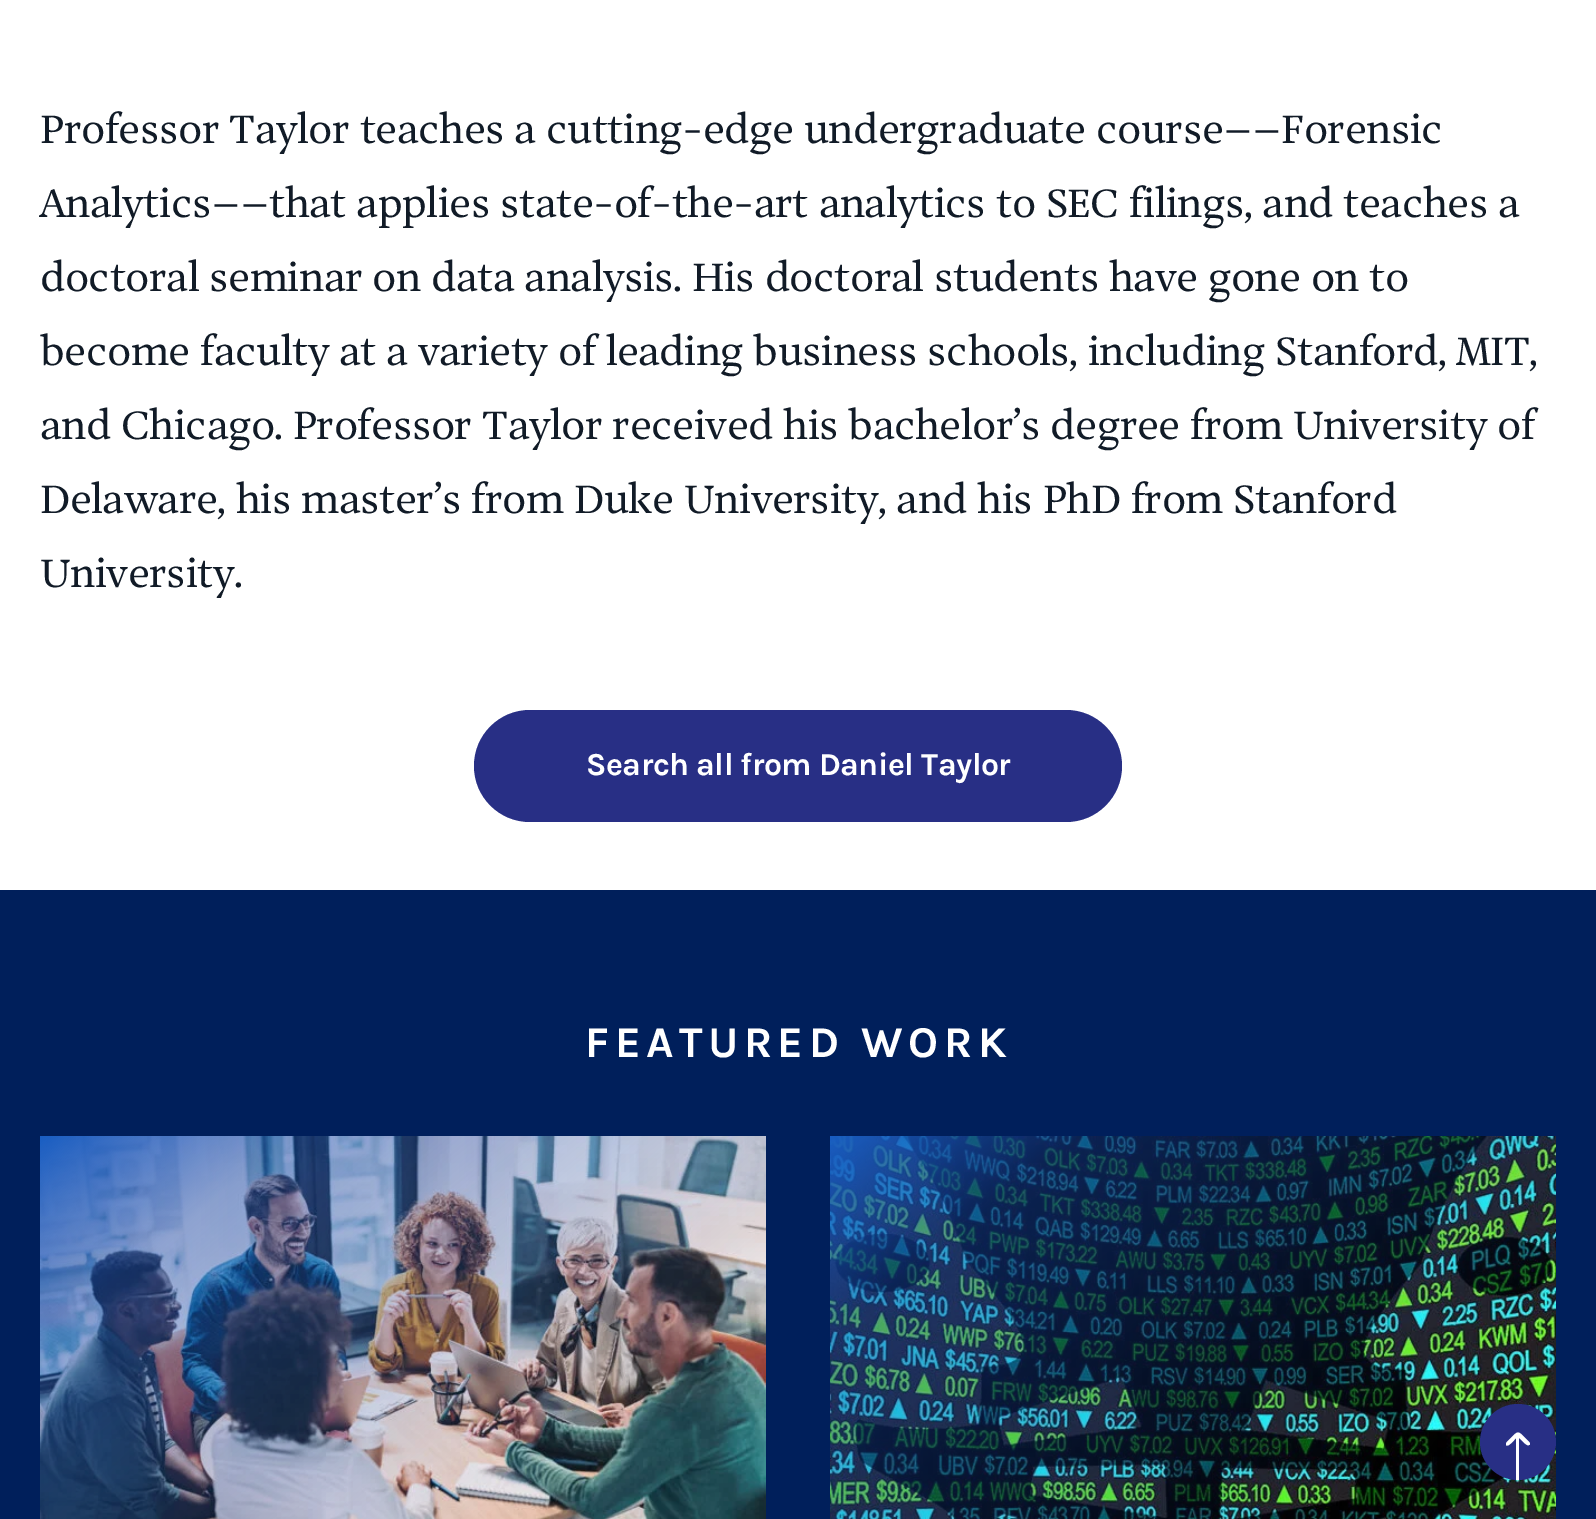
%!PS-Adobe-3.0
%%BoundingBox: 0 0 1596 1519
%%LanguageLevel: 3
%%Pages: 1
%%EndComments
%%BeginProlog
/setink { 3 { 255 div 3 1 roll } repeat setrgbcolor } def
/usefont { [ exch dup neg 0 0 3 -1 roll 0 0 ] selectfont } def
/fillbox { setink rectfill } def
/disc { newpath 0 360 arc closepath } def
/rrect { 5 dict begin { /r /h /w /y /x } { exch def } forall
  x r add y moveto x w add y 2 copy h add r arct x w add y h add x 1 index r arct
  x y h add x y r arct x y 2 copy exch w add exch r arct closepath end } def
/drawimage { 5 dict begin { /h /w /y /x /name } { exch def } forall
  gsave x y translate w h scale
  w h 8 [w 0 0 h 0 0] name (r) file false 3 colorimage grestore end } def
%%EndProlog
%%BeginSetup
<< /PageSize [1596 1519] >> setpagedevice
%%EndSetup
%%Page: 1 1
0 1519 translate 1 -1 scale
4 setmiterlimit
0 0 1596 1519 255 255 255 fillbox
/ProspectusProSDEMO-Regular 44 usefont
17 27 39 setink
40 143 moveto -0.7 0 (Professor Taylor teaches a cutting-edge undergraduate course––Forensic) ashow
40 217 moveto -0.7 0 (Analytics––that applies state-of-the-art analytics to SEC filings, and teaches a) ashow
40 291 moveto -0.7 0 (doctoral seminar on data analysis. His doctoral students have gone on to) ashow
40 365 moveto -0.7 0 (become faculty at a variety of leading business schools, including Stanford, MIT,) ashow
40 439 moveto -0.7 0 (and Chicago. Professor Taylor received his bachelor’s degree from University of) ashow
40 513 moveto -0.7 0 (Delaware, his master’s from Duke University, and his PhD from Stanford) ashow
40 587 moveto -0.7 0 (University.) ashow
40 47 133 setink
474 710 648 112 56 rrect fill
/Karla-Bold 32 usefont
255 255 255 setink
586 775 moveto -0.5 0 (Search all from Daniel Taylor) ashow
0 890 1596 629 0 31 91 fillbox
/Karla-Bold 44 usefont
255 255 255 setink
585 1057 moveto 5.5 0 (FEATURED WORK) ashow
(assets/img1.rgb) 40 1136 726 383 drawimage
(assets/img2.rgb) 830 1136 726 383 drawimage
40 47 133 setink
1518 1442 38 disc fill
255 255 255 setink
1530 1443 moveto 1530 1444 1530 1445 1529 1445 curveto 1527 1447 1521 1439 1519 1438 curveto 1519 1480 lineto 1516 1480 lineto 1516 1438 lineto 1515 1439 1508 1448 1506 1445 curveto 1506 1443 lineto 1520 1429 1516 1429 1530 1443 curveto closepath fill
showpage
%%EOF
